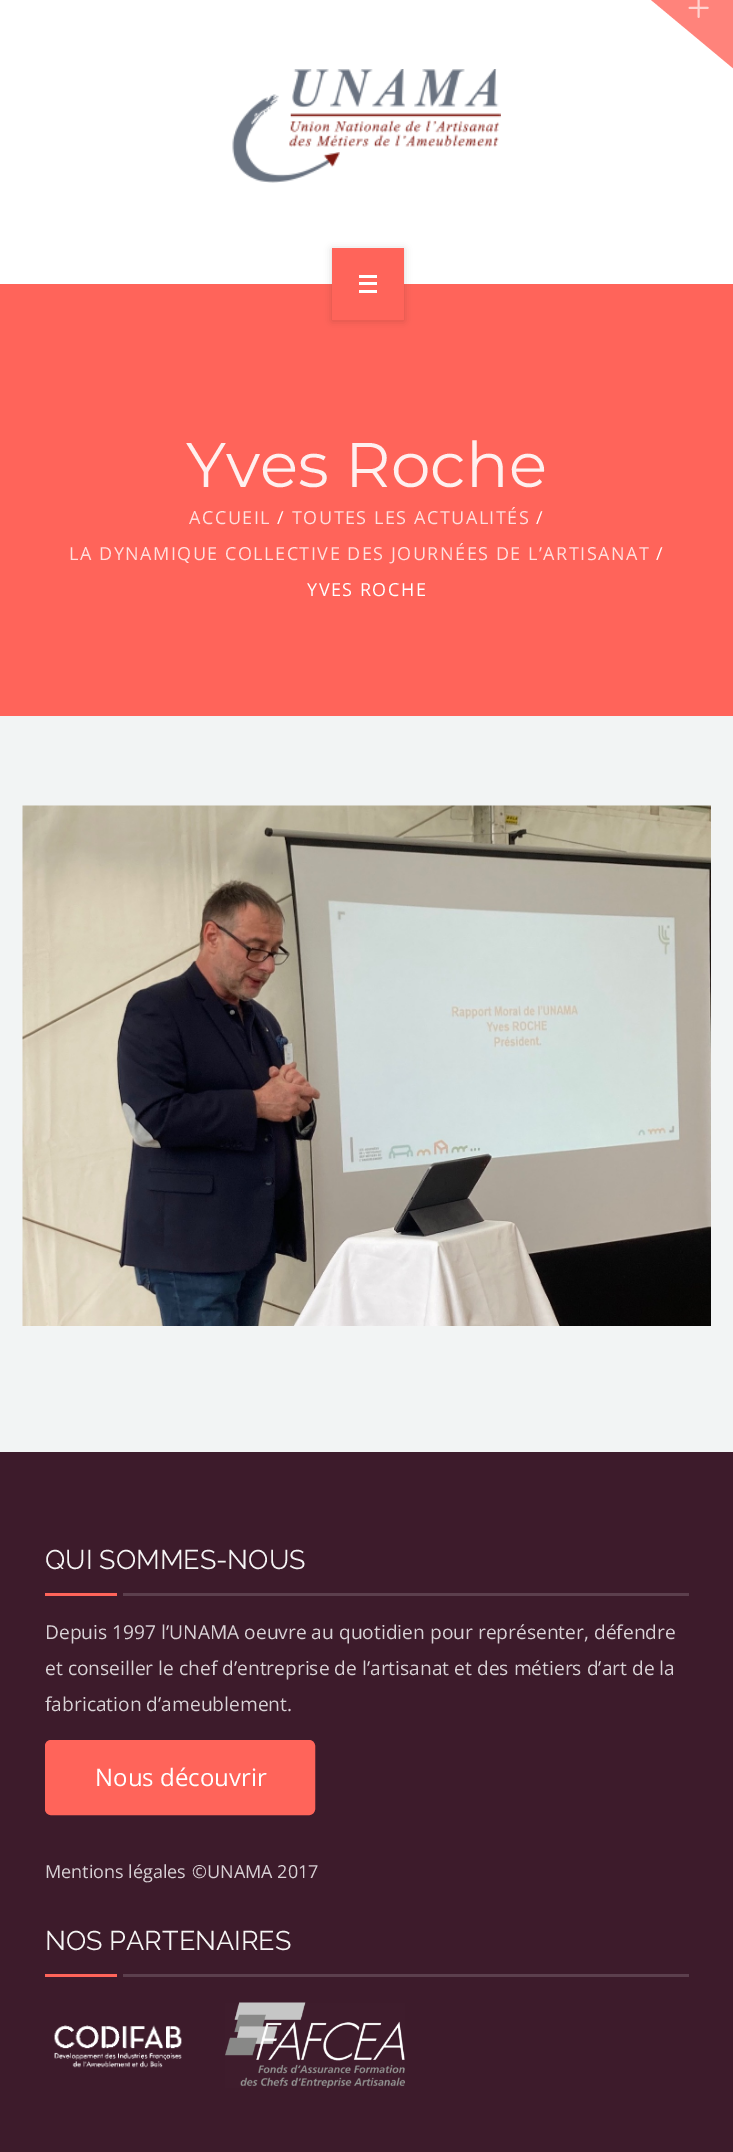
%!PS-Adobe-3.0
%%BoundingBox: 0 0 733 2152
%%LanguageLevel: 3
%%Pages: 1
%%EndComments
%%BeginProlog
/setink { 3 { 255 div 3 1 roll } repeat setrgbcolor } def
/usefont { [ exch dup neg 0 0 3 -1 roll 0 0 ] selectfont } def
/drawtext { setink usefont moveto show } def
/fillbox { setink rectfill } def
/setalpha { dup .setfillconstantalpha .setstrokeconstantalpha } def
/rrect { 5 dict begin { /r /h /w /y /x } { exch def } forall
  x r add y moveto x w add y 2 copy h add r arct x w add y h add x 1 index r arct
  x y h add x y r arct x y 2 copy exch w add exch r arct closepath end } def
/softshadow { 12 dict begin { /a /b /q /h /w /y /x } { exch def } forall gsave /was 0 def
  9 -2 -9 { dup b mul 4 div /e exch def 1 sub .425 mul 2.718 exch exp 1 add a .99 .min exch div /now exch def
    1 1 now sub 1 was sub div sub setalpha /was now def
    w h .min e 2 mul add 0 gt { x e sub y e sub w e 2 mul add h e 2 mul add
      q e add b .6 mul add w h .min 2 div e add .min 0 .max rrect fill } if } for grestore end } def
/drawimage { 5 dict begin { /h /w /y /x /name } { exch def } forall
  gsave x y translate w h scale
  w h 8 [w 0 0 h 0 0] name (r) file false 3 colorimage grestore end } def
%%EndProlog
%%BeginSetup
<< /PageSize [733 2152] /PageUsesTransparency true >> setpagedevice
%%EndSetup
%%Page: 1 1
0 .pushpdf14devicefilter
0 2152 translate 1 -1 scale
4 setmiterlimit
0 0 733 2152 61 27 43 fillbox
0 0 733 284 255 255 255 fillbox
255 131 123 setink
626 -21 moveto 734 -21 lineto 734 69 lineto closepath fill
(assets/img1.rgb) 688 0 21 18 drawimage
(assets/img2.rgb) 232 69 269 114 drawimage
0 284 733 432 255 100 90 fillbox
0 0 0 setink
332 249 72 72 0 4 0.15 softshadow
332 248 72 72 255 100 90 fillbox
359 275 18 3 255 255 255 fillbox
359 282 18 3 255 255 255 fillbox
359 290 18 3 255 255 255 fillbox
(Yves Roche) 186 487 /Montserrat-Thin 63 255 240 239 drawtext
/OpenSans-Regular 18 usefont
255 224 222 setink
189 524 moveto 1.5 0 (ACCUEIL) ashow
255 255 255 setink
277 524 moveto 1.5 0 (/) ashow
255 224 222 setink
292 524 moveto 1.5 0 (TOUTES LES ACTUALITÉS) ashow
255 255 255 setink
536 524 moveto 1.5 0 (/) ashow
255 224 222 setink
69 560 moveto 1.5 0 (LA DYNAMIQUE COLLECTIVE DES JOURNÉES DE L’ARTISANAT) ashow
255 255 255 setink
656 560 moveto 1.5 0 (/) ashow
307 596 moveto 1.5 0 (YVES ROCHE) ashow
0 716 733 736 242 244 244 fillbox
(assets/img3.rgb) 22 805 689 521 drawimage
(QUI SOMMES-NOUS) 45 1569 /Raleway-Thin 27 245 244 244 drawtext
45 1593 72 3 255 100 90 fillbox
123 1593 566 3 92 63 77 fillbox
(Depuis 1997 l’UNAMA oeuvre au quotidien pour représenter, défendre) 45 1639 /OpenSans-Regular 19.2 216 209 213 drawtext
(et conseiller le chef d’entreprise de l’artisanat et des métiers d’art de la) 45 1675 /OpenSans-Regular 19.2 216 209 213 drawtext
(fabrication d’ameublement.) 45 1711 /OpenSans-Regular 19.2 216 209 213 drawtext
255 100 90 setink
46 1741 268 73 5 rrect gsave fill grestore
2 setlinewidth
stroke
(Nous découvrir) 95 1786 /OpenSans-Regular 24 255 255 255 drawtext
(Mentions légales) 45 1878 /OpenSans-Regular 18 216 209 213 drawtext
(©UNAMA 2017) 192 1878 /OpenSans-Regular 18 216 209 213 drawtext
(NOS PARTENAIRES) 45 1950 /Raleway-Thin 27 245 244 244 drawtext
45 1974 72 3 255 100 90 fillbox
123 1974 566 3 92 63 77 fillbox
(assets/img4.rgb) 54 2025 128 43 drawimage
(assets/img5.rgb) 225 2002 180 86 drawimage
.poppdf14devicefilter showpage
%%EOF
